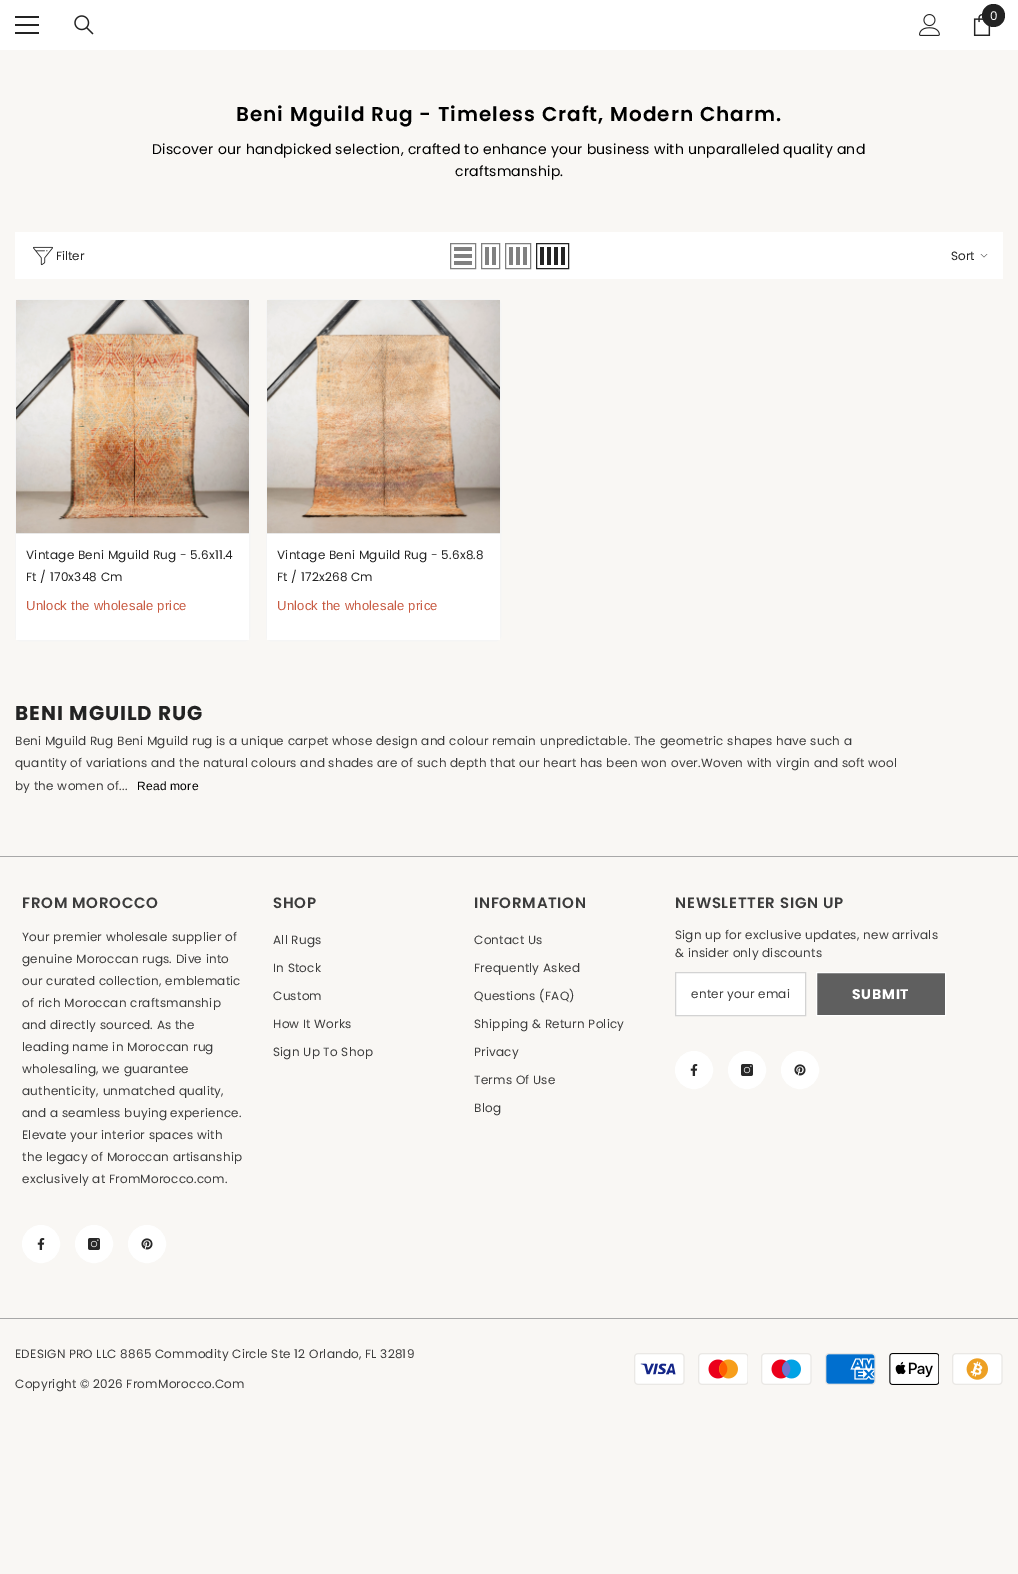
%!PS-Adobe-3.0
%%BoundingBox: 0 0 1018 1574
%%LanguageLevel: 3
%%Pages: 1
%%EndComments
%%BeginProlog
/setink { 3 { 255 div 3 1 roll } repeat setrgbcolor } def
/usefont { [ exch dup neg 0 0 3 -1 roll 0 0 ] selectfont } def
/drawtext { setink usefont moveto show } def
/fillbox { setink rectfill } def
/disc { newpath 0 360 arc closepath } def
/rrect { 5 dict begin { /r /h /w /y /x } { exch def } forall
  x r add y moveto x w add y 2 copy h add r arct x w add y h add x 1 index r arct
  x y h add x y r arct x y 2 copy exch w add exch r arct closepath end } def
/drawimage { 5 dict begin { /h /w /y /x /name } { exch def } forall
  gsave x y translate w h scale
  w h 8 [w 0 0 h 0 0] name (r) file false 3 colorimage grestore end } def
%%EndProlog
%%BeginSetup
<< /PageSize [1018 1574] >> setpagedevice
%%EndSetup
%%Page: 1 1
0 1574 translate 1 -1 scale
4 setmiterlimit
0 0 1018 1574 249 247 244 fillbox
0 0 1018 50 255 255 255 fillbox
15 24 24 2 35 35 35 fillbox
15 16 24 2 35 35 35 fillbox
15 32 24 2 35 35 35 fillbox
(assets/img1.rgb) 74 15 20 20 drawimage
(assets/img2.rgb) 919 14 21 22 drawimage
(assets/img3.rgb) 973 14 18 22 drawimage
993.5 15.5 11.5 disc fill
(0) 990 20 /Poppins-Regular 12 255 255 255 drawtext
/Poppins-SemiBold 20 usefont
0 0 0 setink
236 121 moveto 1 0 (Beni Mguild Rug - Timeless Craft, Modern Charm.) ashow
/Poppins-Regular 14 usefont
152 154 moveto 0.24 0 (Discover our handpicked selection, crafted to enhance your business with unparalleled quality and) ashow
455 176 moveto 0.24 0 (craftsmanship.) ashow
15 232 988 47 255 255 255 fillbox
(assets/img4.rgb) 33 246 20 20 drawimage
(Filter) 56 260 /Poppins-Regular 12 35 35 35 drawtext
128 128 128 setink
450.5 243.5 25 25 rectstroke
454 261 18 4 128 128 128 fillbox
454 254 18 4 128 128 128 fillbox
454 247 18 4 128 128 128 fillbox
481.5 243.5 18 25 rectstroke
492 247 4 18 128 128 128 fillbox
485 247 4 18 128 128 128 fillbox
505.5 243.5 25 25 rectstroke
523 247 4 18 128 128 128 fillbox
516 247 4 18 128 128 128 fillbox
509 247 4 18 128 128 128 fillbox
35 35 35 setink
536.5 243.5 32 25 rectstroke
561 247 4 18 35 35 35 fillbox
554 247 4 18 35 35 35 fillbox
547 247 4 18 35 35 35 fillbox
540 247 4 18 35 35 35 fillbox
(Sort) 951 260 /Poppins-Regular 12 35 35 35 drawtext
(assets/img5.rgb) 980 254 8 4 drawimage
245 245 245 setink
15.5 299.5 234 341 4.5 rrect stroke
(assets/img6.rgb) 16 300 233 233 drawimage
16 534 233 106 255 255 255 fillbox
16 533 233 1 233 233 233 fillbox
35 35 35 setink
26 559 moveto 0.24 0 (Vintage Beni Mguild Rug - 5.6x11.4) ashow
26 581 moveto 0.24 0 (Ft / 170x348 Cm) ashow
/LiberationSans-Regular 13 usefont
200 90 65 setink
26 610 moveto 0.24 0 (Unlock the wholesale price) ashow
245 245 245 setink
266.5 299.5 234 341 4.5 rrect stroke
(assets/img7.rgb) 267 300 233 233 drawimage
267 534 233 106 255 255 255 fillbox
267 533 233 1 233 233 233 fillbox
/Poppins-Regular 12 usefont
35 35 35 setink
277 559 moveto 0.24 0 (Vintage Beni Mguild Rug - 5.6x8.8) ashow
277 581 moveto 0.24 0 (Ft / 172x268 Cm) ashow
/LiberationSans-Regular 13 usefont
200 90 65 setink
277 610 moveto 0.24 0 (Unlock the wholesale price) ashow
/Poppins-Bold 20 usefont
35 35 35 setink
15 720 moveto 1 0 (BENI MGUILD RUG) ashow
/Poppins-Regular 12 usefont
60 60 60 setink
15 745 moveto 0.24 0 (Beni Mguild Rug Beni Mguild rug is a unique carpet whose design and colour remain unpredictable. The geometric shapes have such a) ashow
15 767 moveto 0.24 0 (quantity of variations and the natural colours and shades are of such depth that our heart has been won over.Woven with virgin and soft wool) ashow
15 790 moveto 0.24 0 (by the women of...) ashow
/LiberationSans-Regular 12 usefont
0 0 0 setink
137 790 moveto 0.24 0 (Read more) ashow
0 856 1018 1 168 168 168 fillbox
/Poppins-SemiBold 15 usefont
60 60 60 setink
22 908 moveto 0.75 0 (FROM MOROCCO) ashow
/Poppins-Regular 12 usefont
22 941 moveto 0.24 0 (Your premier wholesale supplier of) ashow
22 963 moveto 0.24 0 (genuine Moroccan rugs. Dive into) ashow
22 985 moveto 0.24 0 (our curated collection, emblematic) ashow
22 1007 moveto 0.24 0 (of rich Moroccan craftsmanship) ashow
22 1029 moveto 0.24 0 (and directly sourced. As the) ashow
22 1051 moveto 0.24 0 (leading name in Moroccan rug) ashow
22 1073 moveto 0.24 0 (wholesaling, we guarantee) ashow
22 1095 moveto 0.24 0 (authenticity, unmatched quality,) ashow
22 1117 moveto 0.24 0 (and a seamless buying experience.) ashow
22 1139 moveto 0.24 0 (Elevate your interior spaces with) ashow
22 1161 moveto 0.24 0 (the legacy of Moroccan artisanship) ashow
22 1183 moveto 0.24 0 (exclusively at FromMorocco.com.) ashow
255 255 255 setink
41 1244 18.5 disc gsave fill grestore
stroke
(assets/img8.rgb) 37 1238 8 12 drawimage
94 1244 18.5 disc gsave fill grestore
stroke
(assets/img9.rgb) 88 1238 12 12 drawimage
147 1244 18.5 disc gsave fill grestore
stroke
(assets/img10.rgb) 141 1238 12 12 drawimage
/Poppins-SemiBold 15 usefont
60 60 60 setink
273 908 moveto 0.75 0 (SHOP) ashow
/Poppins-Regular 12 usefont
273 944 moveto 0.24 0 (All Rugs) ashow
273 972 moveto 0.24 0 (In Stock) ashow
273 1000 moveto 0.24 0 (Custom) ashow
273 1028 moveto 0.24 0 (How It Works) ashow
273 1056 moveto 0.24 0 (Sign Up To Shop) ashow
/Poppins-SemiBold 15 usefont
474 908 moveto 0.75 0 (INFORMATION) ashow
/Poppins-Regular 12 usefont
474 944 moveto 0.24 0 (Contact Us) ashow
474 972 moveto 0.24 0 (Frequently Asked) ashow
474 1000 moveto 0.24 0 (Questions \(FAQ\)) ashow
474 1028 moveto 0.24 0 (Shipping & Return Policy) ashow
474 1056 moveto 0.24 0 (Privacy) ashow
474 1084 moveto 0.24 0 (Terms Of Use) ashow
474 1112 moveto 0.24 0 (Blog) ashow
/Poppins-SemiBold 15 usefont
675 908 moveto 0.75 0 (NEWSLETTER SIGN UP) ashow
/Poppins-Regular 12 usefont
675 939 moveto 0.24 0 (Sign up for exclusive updates, new arrivals) ashow
675 957 moveto 0.24 0 (& insider only discounts) ashow
255 255 255 setink
675.5 972.5 moveto 805.5 972.5 lineto 805.5 1015.5 lineto 675.5 1015.5 lineto closepath gsave fill grestore
211 211 211 setink
stroke
60 60 60 setink
691 998 moveto 0.24 0 (enter your emai) ashow
95 95 95 setink
816.5 972.5 moveto 945.5 972.5 lineto 945.5 1015.5 lineto 816.5 1015.5 lineto closepath gsave fill grestore
255 255 255 setink
stroke
/Poppins-Bold 14 usefont
852 999 moveto 0.75 0 (SUBMIT) ashow
694 1070 18.5 disc gsave fill grestore
stroke
(assets/img8.rgb) 690 1064 8 12 drawimage
747 1070 18.5 disc gsave fill grestore
stroke
(assets/img9.rgb) 741 1064 12 12 drawimage
800 1070 18.5 disc gsave fill grestore
stroke
(assets/img10.rgb) 794 1064 12 12 drawimage
0 1318 1018 1 168 168 168 fillbox
/Poppins-Regular 12 usefont
60 60 60 setink
15 1358 moveto 0.24 0 (EDESIGN PRO LLC 8865 Commodity Circle Ste 12 Orlando, FL 32819) ashow
15 1388 moveto 0.24 0 (Copyright © 2026 FromMorocco.Com) ashow
(assets/img11.rgb) 634 1353 51 32 drawimage
(assets/img12.rgb) 698 1353 50 32 drawimage
(assets/img13.rgb) 761 1353 51 32 drawimage
(assets/img14.rgb) 825 1353 51 32 drawimage
(assets/img15.rgb) 889 1353 50 32 drawimage
(assets/img16.rgb) 952 1353 51 32 drawimage
showpage
%%EOF
